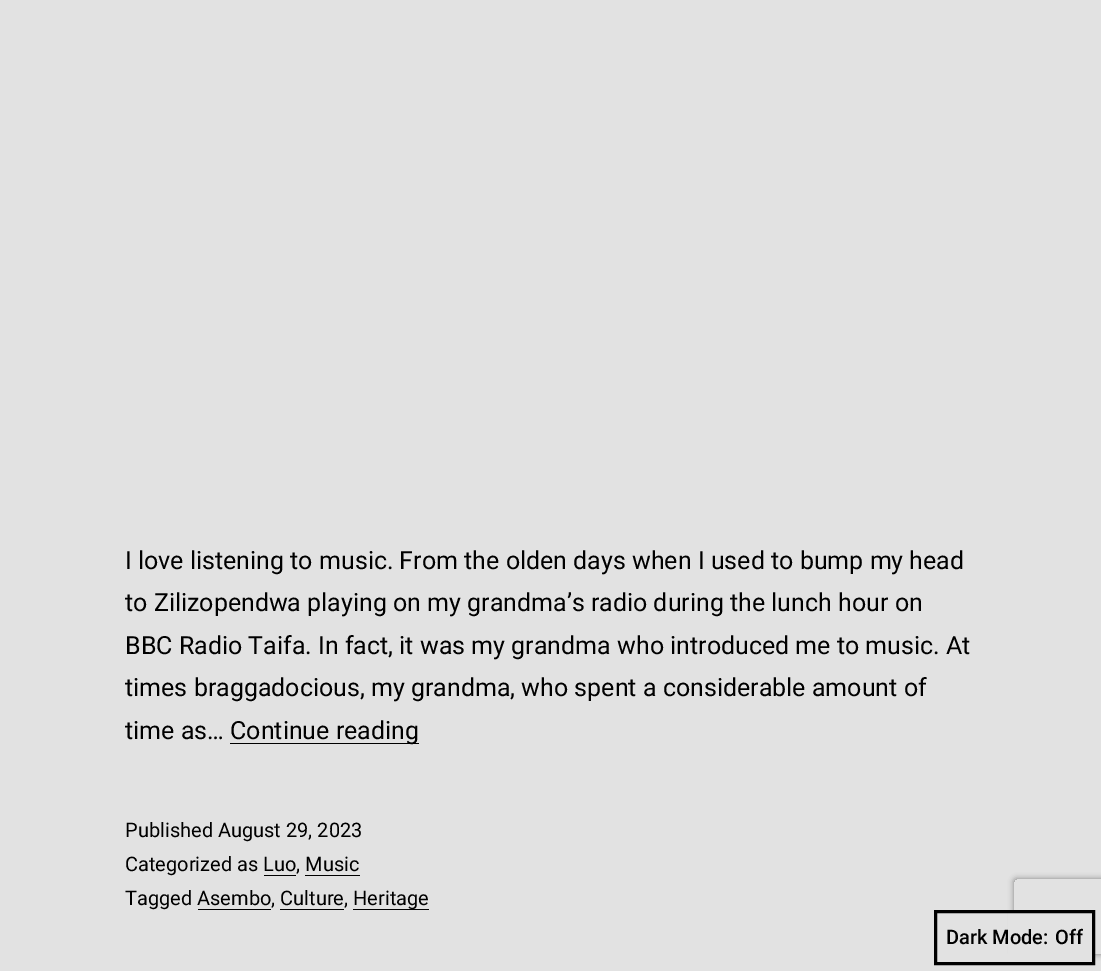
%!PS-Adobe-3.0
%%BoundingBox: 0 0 1101 971
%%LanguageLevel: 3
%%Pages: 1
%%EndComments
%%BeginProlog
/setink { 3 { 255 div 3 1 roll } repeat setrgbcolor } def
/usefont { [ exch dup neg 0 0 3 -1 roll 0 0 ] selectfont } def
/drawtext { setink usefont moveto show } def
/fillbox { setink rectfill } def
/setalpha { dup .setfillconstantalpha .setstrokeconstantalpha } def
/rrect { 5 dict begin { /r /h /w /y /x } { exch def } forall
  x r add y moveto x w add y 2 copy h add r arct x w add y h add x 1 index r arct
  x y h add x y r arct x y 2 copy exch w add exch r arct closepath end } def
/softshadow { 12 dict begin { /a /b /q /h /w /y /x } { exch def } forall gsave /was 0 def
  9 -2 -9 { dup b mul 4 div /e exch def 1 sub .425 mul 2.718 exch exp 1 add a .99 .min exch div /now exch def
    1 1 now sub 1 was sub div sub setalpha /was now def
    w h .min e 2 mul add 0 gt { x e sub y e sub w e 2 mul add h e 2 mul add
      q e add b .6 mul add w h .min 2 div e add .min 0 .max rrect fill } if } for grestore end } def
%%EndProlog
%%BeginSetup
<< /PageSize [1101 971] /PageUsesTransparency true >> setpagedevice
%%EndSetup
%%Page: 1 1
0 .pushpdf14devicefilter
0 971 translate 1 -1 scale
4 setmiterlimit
0 0 1101 971 226 226 226 fillbox
(I love listening to music. From the olden days when I used to bump my head) 125 569 /Roboto-Regular 25 0 0 0 drawtext
(to Zilizopendwa playing on my grandma’s radio during the lunch hour on) 125 611 /Roboto-Regular 25 0 0 0 drawtext
(BBC Radio Taifa. In fact, it was my grandma who introduced me to music. At) 125 654 /Roboto-Regular 25 0 0 0 drawtext
(times braggadocious, my grandma, who spent a considerable amount of) 125 696 /Roboto-Regular 25 0 0 0 drawtext
(time as…) 125 739 /Roboto-Regular 25 0 0 0 drawtext
230 743 189 1 0 0 0 fillbox
(Continue reading) 230 739 /Roboto-Regular 25 0 0 0 drawtext
(Published August 29, 2023) 125 837 /Roboto-Regular 20 0 0 0 drawtext
(Categorized as Luo, Music) 125 871 /Roboto-Regular 20 0 0 0 drawtext
264 875 32 1 0 0 0 fillbox
305 875 55 1 0 0 0 fillbox
(Tagged Asembo, Culture,) 125 905 /Roboto-Regular 20 0 0 0 drawtext
353 909 76 1 0 0 0 fillbox
(Heritage) 353 905 /Roboto-Regular 20 0 0 0 drawtext
198 909 73 1 0 0 0 fillbox
280 909 64 1 0 0 0 fillbox
gsave
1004 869 moveto 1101 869 lineto 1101 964 lineto 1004 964 lineto closepath 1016.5 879 moveto 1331.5 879 lineto 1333 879 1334 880 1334 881.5 curveto 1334 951.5 lineto 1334 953 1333 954 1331.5 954 curveto 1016.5 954 lineto 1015 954 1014 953 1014 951.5 curveto 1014 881.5 lineto 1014 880 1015 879 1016.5 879 curveto closepath eoclip newpath
128 128 128 setink
1014 879 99 75 2.5 3 1 softshadow
grestore
1008 913 84 47 226 226 226 fillbox
0 0 0 setink
3 setlinewidth
935.5 911.5 158 52 rectstroke
(Dark Mode:) 946 944 /Roboto-Medium 20 0 0 0 drawtext
(Off) 1055 944 /Roboto-Medium 20 0 0 0 drawtext
.poppdf14devicefilter showpage
%%EOF
